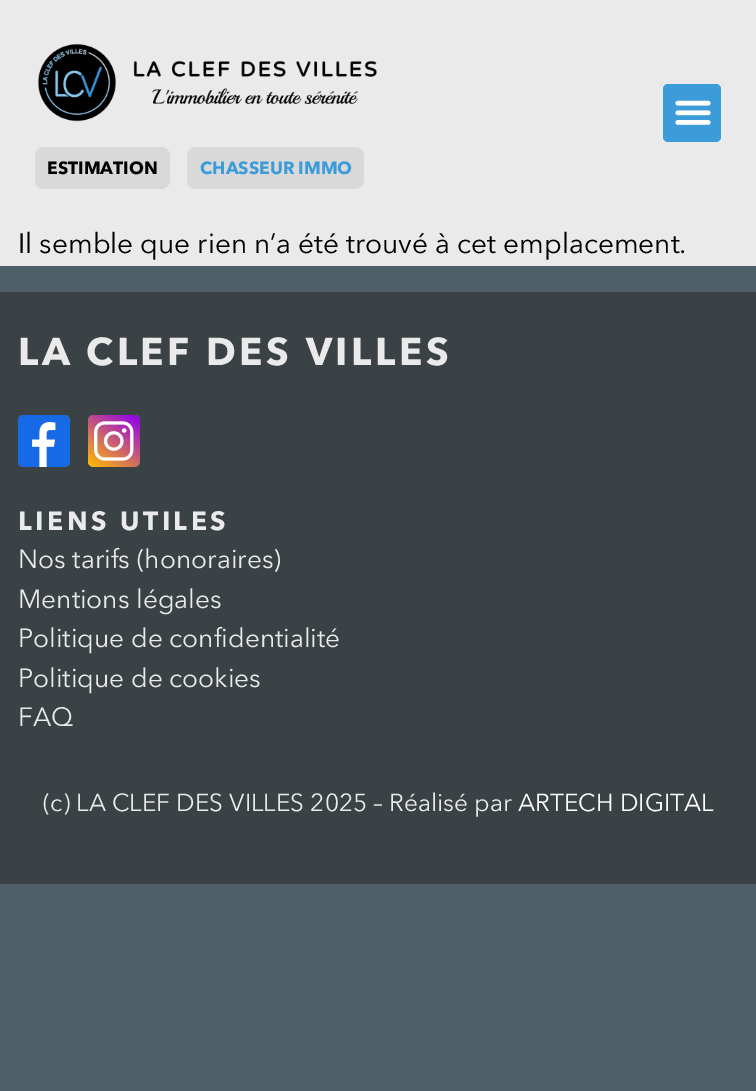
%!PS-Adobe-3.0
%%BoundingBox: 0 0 756 1091
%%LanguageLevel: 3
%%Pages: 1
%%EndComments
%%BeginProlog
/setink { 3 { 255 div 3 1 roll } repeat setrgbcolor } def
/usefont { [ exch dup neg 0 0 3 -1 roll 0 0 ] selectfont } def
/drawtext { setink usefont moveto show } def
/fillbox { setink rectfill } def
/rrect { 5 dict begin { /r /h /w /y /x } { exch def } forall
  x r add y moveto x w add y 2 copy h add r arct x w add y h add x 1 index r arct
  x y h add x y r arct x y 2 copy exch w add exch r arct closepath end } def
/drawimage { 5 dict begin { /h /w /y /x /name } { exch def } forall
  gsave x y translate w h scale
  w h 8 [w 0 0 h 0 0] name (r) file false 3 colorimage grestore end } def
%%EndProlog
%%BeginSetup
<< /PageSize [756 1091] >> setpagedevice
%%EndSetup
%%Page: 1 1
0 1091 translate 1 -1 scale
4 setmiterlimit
0 0 756 1091 79 95 103 fillbox
0 0 756 266 234 234 234 fillbox
59 156 217 setink
663 84 58 58 5 rrect fill
(assets/img1.rgb) 675 100 36 25 drawimage
(assets/img2.rgb) 38 43 339 79 drawimage
218 217 217 setink
35 147 135 42 9 rrect fill
(ESTIMATION) 47 174 /AvenirNext-Bold 17.5 0 0 0 drawtext
218 217 217 setink
187 147 177 42 9 rrect fill
(CHASSEUR IMMO) 200 174 /AvenirNext-Bold 17.5 59 156 217 drawtext
(Il semble que rien n’a été trouvé à cet emplacement.) 18 253 /AvenirNext-Regular 28 0 0 0 drawtext
0 292 756 592 59 66 69 fillbox
/AvenirNext-Bold 38.5 usefont
234 234 234 setink
18 365 moveto 3.5 0 (LA CLEF DES VILLES) ashow
105 114 125 setink
18 415 52 52 5 rrect fill
(assets/img3.rgb) 18 415 52 52 drawimage
88 415 52 52 5 rrect fill
(assets/img4.rgb) 88 415 52 52 drawimage
/AvenirNext-Bold 26.25 usefont
234 234 234 setink
18 530 moveto 3.5 0 (LIENS UTILES) ashow
(Nos tarifs \(honoraires\)) 18 568 /AvenirNext-Regular 26.25 234 234 234 drawtext
(Mentions légales) 18 608 /AvenirNext-Regular 26.25 234 234 234 drawtext
(Politique de confidentialité) 18 647 /AvenirNext-Regular 26.25 234 234 234 drawtext
(Politique de cookies) 18 687 /AvenirNext-Regular 26.25 234 234 234 drawtext
(FAQ) 18 726 /AvenirNext-Regular 26.25 234 234 234 drawtext
(\(c\) LA CLEF DES VILLES 2025 – Réalisé par) 43 811 /AvenirNext-Regular 24.5 234 234 234 drawtext
(ARTECH DIGITAL) 518 811 /AvenirNext-Regular 24.5 255 255 255 drawtext
showpage
%%EOF
